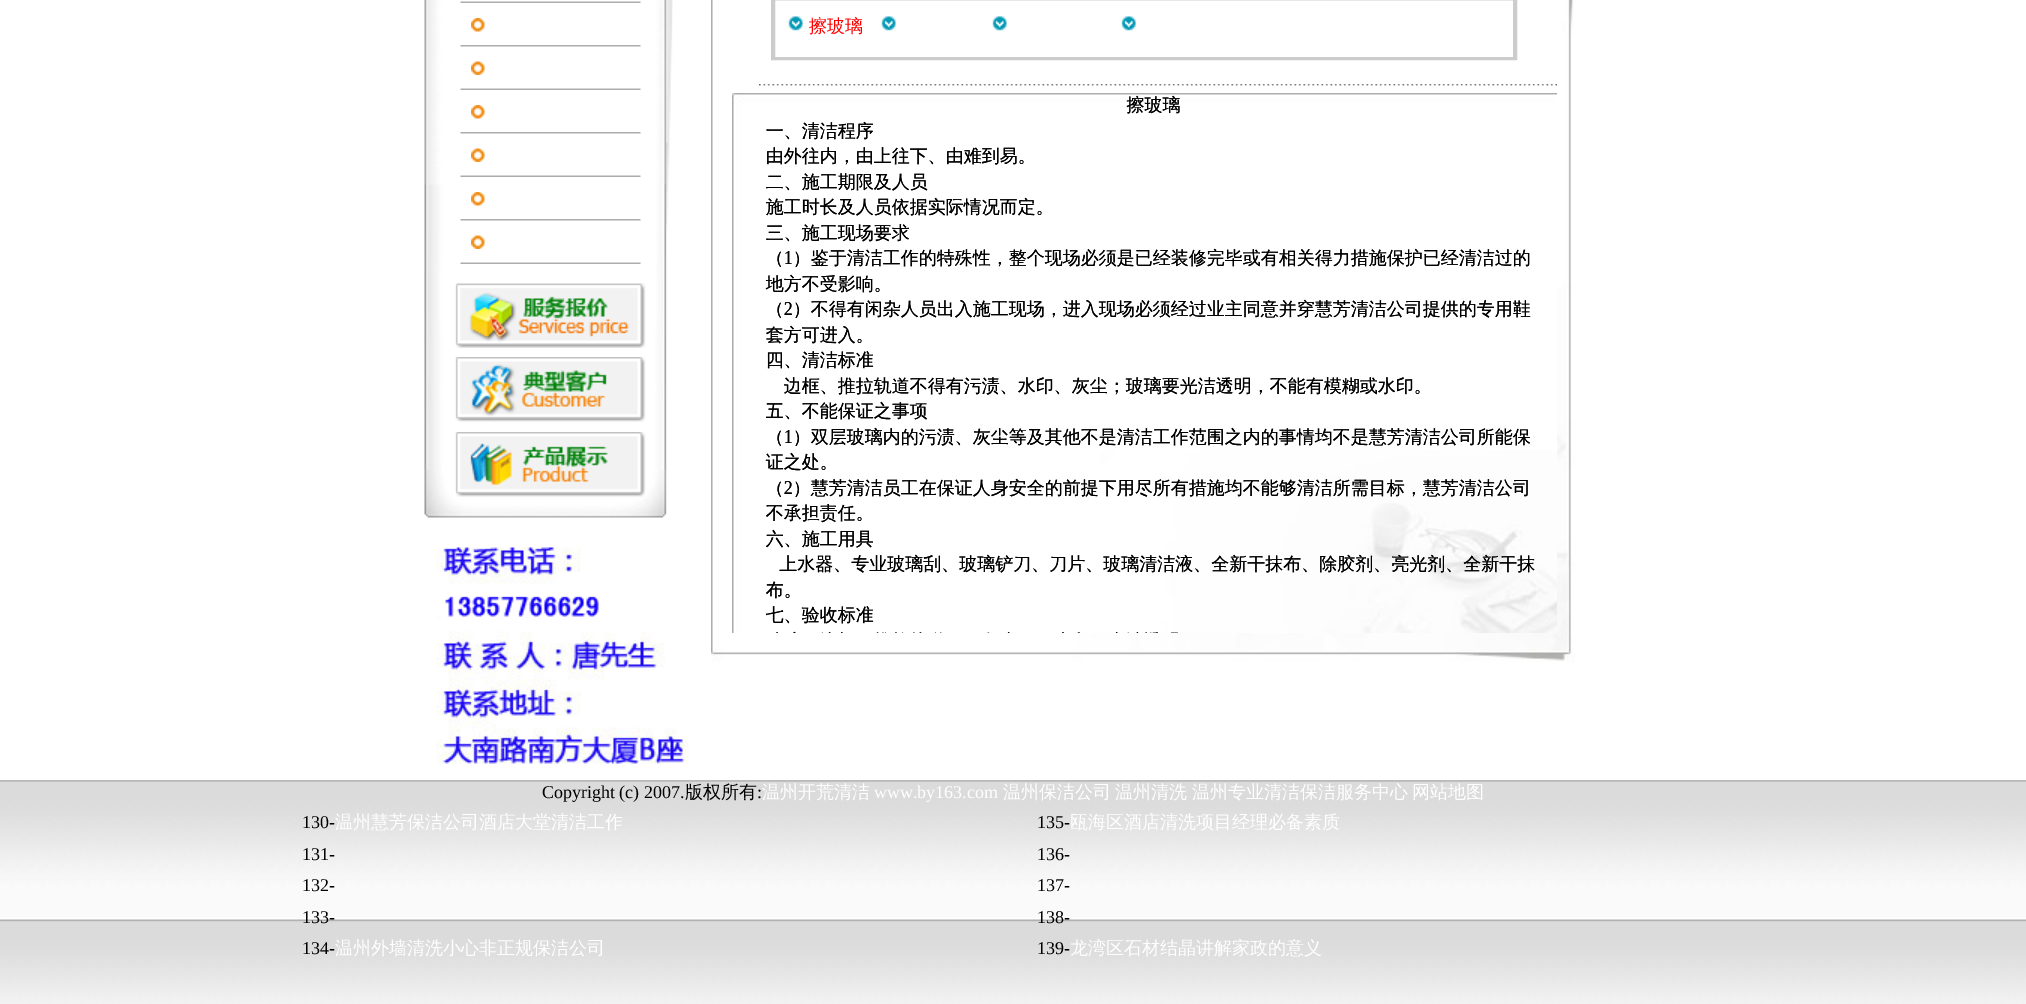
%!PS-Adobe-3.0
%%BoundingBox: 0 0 2026 1004
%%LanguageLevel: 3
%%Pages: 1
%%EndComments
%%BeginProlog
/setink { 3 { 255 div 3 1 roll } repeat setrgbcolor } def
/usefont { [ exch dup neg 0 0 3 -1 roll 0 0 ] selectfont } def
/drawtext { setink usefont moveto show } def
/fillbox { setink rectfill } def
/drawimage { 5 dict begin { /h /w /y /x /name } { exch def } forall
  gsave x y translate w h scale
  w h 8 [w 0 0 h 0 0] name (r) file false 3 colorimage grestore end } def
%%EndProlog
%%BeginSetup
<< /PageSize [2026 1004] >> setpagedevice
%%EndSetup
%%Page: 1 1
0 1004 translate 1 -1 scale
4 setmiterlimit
0 0 2026 1004 255 255 255 fillbox
(assets/img1.rgb) 424 0 249 518 drawimage
(assets/img2.rgb) 460 1 181 2 drawimage
(assets/img3.rgb) 471 18 14 14 drawimage
(assets/img4.rgb) 460 45 181 2 drawimage
(assets/img5.rgb) 471 61 14 14 drawimage
(assets/img2.rgb) 460 88 181 2 drawimage
(assets/img3.rgb) 471 105 14 14 drawimage
(assets/img4.rgb) 460 132 181 2 drawimage
(assets/img5.rgb) 471 148 14 14 drawimage
(assets/img2.rgb) 460 175 181 2 drawimage
(assets/img3.rgb) 471 192 14 14 drawimage
(assets/img4.rgb) 460 219 181 2 drawimage
(assets/img5.rgb) 471 235 14 14 drawimage
(assets/img2.rgb) 460 262 181 2 drawimage
(assets/img6.rgb) 455 283 191 65 drawimage
(assets/img7.rgb) 455 357 191 65 drawimage
(assets/img8.rgb) 455 432 191 65 drawimage
(assets/img9.rgb) 436 547 253 217 drawimage
(assets/img10.rgb) 711 0 864 662 drawimage
204 204 204 setink
2 setlinewidth
772 -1 744 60 rectstroke
774 -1 740 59 rectstroke
(assets/img11.rgb) 788 16 15 15 drawimage
(擦玻璃) 809 32 /WenQuanYiZenHei-Medium 18 255 0 0 drawtext
(assets/img11.rgb) 881 16 15 15 drawimage
(assets/img11.rgb) 992 16 15 15 drawimage
(assets/img12.rgb) 1121 16 15 15 drawimage
(assets/img13.rgb) 759 84 798 2 drawimage
(assets/img14.rgb) 732 93 825 540 drawimage
(assets/img15.rgb) 765 95 770 538 drawimage
(assets/img16.rgb) 0 780 2026 224 drawimage
(Copyright \(c\) 2007.) 542 798 /LiberationSerif-Regular 18 0 0 0 drawtext
(版权所有) 685 798 /WenQuanYiZenHei-Medium 18 0 0 0 drawtext
(:) 757 798 /LiberationSerif-Regular 18 0 0 0 drawtext
(温州开荒清洁) 762 798 /WenQuanYiZenHei-Medium 18 255 255 255 drawtext
(www.by163.com) 874 798 /LiberationSerif-Regular 18 255 255 255 drawtext
(温州保洁公司) 1003 798 /WenQuanYiZenHei-Medium 18 255 255 255 drawtext
(温州清洗) 1115 798 /WenQuanYiZenHei-Medium 18 255 255 255 drawtext
(温州专业清洁保洁服务中心) 1192 798 /WenQuanYiZenHei-Medium 18 255 255 255 drawtext
(网站地图) 1412 798 /WenQuanYiZenHei-Medium 18 255 255 255 drawtext
(130-) 302 828 /LiberationSerif-Regular 18 0 0 0 drawtext
(温州慧芳保洁公司酒店大堂清洁工作) 335 828 /WenQuanYiZenHei-Medium 18 255 255 255 drawtext
(135-) 1037 828 /LiberationSerif-Regular 18 0 0 0 drawtext
(瓯海区酒店清洗项目经理必备素质) 1070 828 /WenQuanYiZenHei-Medium 18 255 255 255 drawtext
(131-) 302 860 /LiberationSerif-Regular 18 0 0 0 drawtext
(136-) 1037 860 /LiberationSerif-Regular 18 0 0 0 drawtext
(132-) 302 891 /LiberationSerif-Regular 18 0 0 0 drawtext
(137-) 1037 891 /LiberationSerif-Regular 18 0 0 0 drawtext
(133-) 302 923 /LiberationSerif-Regular 18 0 0 0 drawtext
(138-) 1037 923 /LiberationSerif-Regular 18 0 0 0 drawtext
(134-) 302 954 /LiberationSerif-Regular 18 0 0 0 drawtext
(温州外墙清洗小心非正规保洁公司) 335 954 /WenQuanYiZenHei-Medium 18 255 255 255 drawtext
(139-) 1037 954 /LiberationSerif-Regular 18 0 0 0 drawtext
(龙湾区石材结晶讲解家政的意义) 1070 954 /WenQuanYiZenHei-Medium 18 255 255 255 drawtext
showpage
%%EOF
